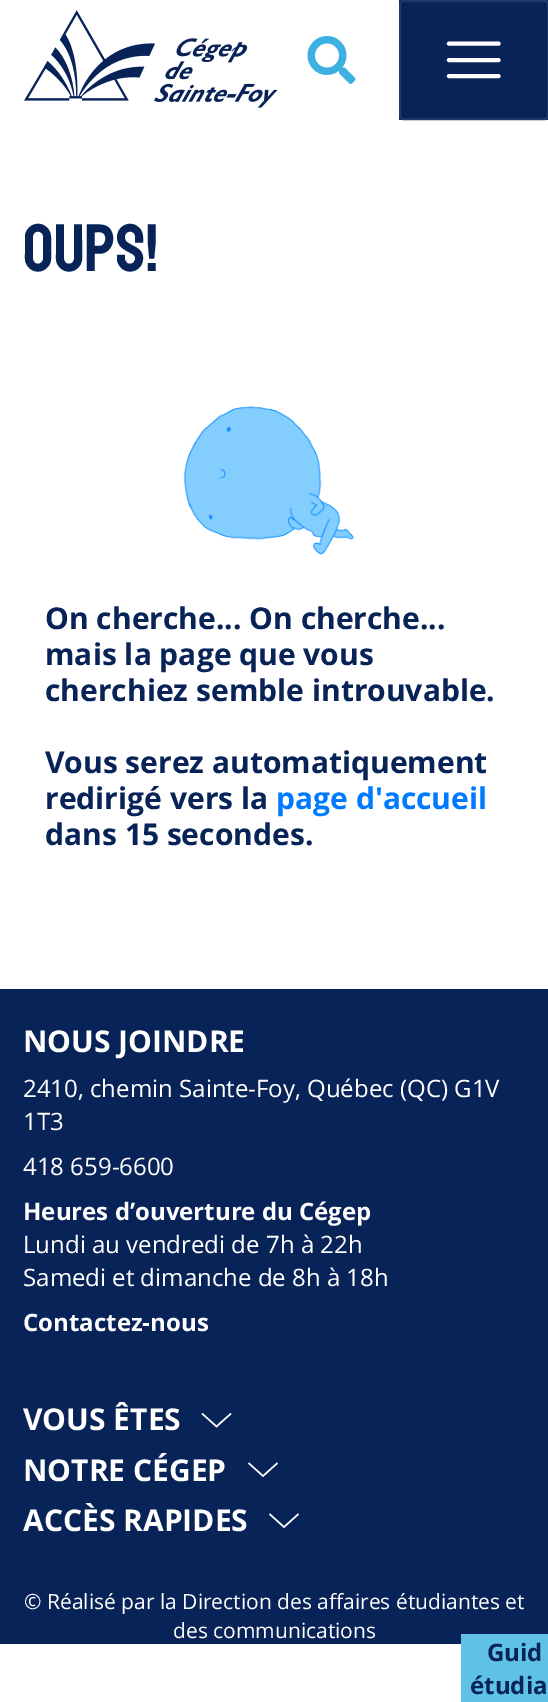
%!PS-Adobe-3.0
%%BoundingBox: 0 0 548 1702
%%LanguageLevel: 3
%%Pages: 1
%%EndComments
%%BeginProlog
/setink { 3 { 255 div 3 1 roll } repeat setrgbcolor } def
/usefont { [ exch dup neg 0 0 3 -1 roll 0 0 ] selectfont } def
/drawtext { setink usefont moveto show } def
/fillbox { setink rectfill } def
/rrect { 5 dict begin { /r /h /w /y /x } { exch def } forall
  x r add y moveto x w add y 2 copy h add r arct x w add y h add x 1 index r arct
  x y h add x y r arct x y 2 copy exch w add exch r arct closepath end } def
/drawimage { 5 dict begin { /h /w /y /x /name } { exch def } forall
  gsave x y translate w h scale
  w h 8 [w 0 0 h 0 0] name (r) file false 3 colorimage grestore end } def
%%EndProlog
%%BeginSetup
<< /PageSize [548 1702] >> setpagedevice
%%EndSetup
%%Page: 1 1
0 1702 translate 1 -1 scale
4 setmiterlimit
0 0 548 1702 255 255 255 fillbox
(assets/img1.rgb) 24 10 254 98 drawimage
(assets/img2.rgb) 307 36 49 48 drawimage
399 0 149 120 8 35 87 fillbox
33 57 104 setink
2 setlinewidth
400 1 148 118 3 rrect stroke
255 255 255 setink
4.1 setlinewidth
1 setlinecap
449 43.5 moveto 498.5 43.5 lineto 449 60 moveto 498.5 60 lineto 449 76 moveto 498.5 76 lineto stroke
(Oups!) 23 271 /Staatliches-Regular 67 8 35 87 drawtext
(assets/img3.rgb) 183 406 171 149 drawimage
(On cherche... On cherche...) 45 629 /OpenSans-Bold 30 8 35 87 drawtext
(mais la page que vous) 45 665 /OpenSans-Bold 30 8 35 87 drawtext
(cherchiez semble introuvable.) 45 701 /OpenSans-Bold 30 8 35 87 drawtext
(Vous serez automatiquement) 45 773 /OpenSans-Bold 30 8 35 87 drawtext
(redirigé vers la) 45 809 /OpenSans-Bold 30 8 35 87 drawtext
(page d'accueil) 276 809 /OpenSans-Bold 30 0 123 255 drawtext
(dans 15 secondes.) 45 845 /OpenSans-Bold 30 8 35 87 drawtext
0 989 548 655 8 35 87 fillbox
(NOUS JOINDRE) 23 1052 /OpenSans-Bold 30 255 255 255 drawtext
(2410, chemin Sainte-Foy, Québec \(QC\) G1V) 23 1097 /OpenSans-Regular 24 255 255 255 drawtext
(1T3) 23 1130 /OpenSans-Regular 24 255 255 255 drawtext
(418 659-6600) 23 1175 /OpenSans-Regular 24 255 255 255 drawtext
(Heures d’ouverture du Cégep) 23 1220 /OpenSans-Bold 24 255 255 255 drawtext
(Lundi au vendredi de 7h à 22h) 23 1253 /OpenSans-Regular 24 255 255 255 drawtext
(Samedi et dimanche de 8h à 18h) 23 1286 /OpenSans-Regular 24 255 255 255 drawtext
(Contactez-nous) 23 1331 /OpenSans-Bold 24 255 255 255 drawtext
(VOUS ÊTES) 23 1430 /OpenSans-Bold 30 255 255 255 drawtext
216.5 1427.5 moveto 201.5 1414 lineto 202.5 1413 lineto 216.5 1425.5 lineto 230.5 1413 lineto 231.5 1414 lineto closepath fill
(NOTRE CÉGEP) 23 1481 /OpenSans-Bold 30 255 255 255 drawtext
263 1477 moveto 248 1463.5 lineto 249 1462.5 lineto 263 1475 lineto 277 1462.5 lineto 278 1463.5 lineto closepath fill
(ACCÈS RAPIDES) 23 1531 /OpenSans-Bold 30 255 255 255 drawtext
284 1528 moveto 269 1514.5 lineto 270 1513.5 lineto 284 1526 lineto 298 1513.5 lineto 299 1514.5 lineto closepath fill
(© Réalisé par la Direction des affaires étudiantes et) 24 1609 /OpenSans-Regular 21 255 255 255 drawtext
(des communications) 173 1638 /OpenSans-Regular 21 255 255 255 drawtext
461 1634 87 68 94 193 229 fillbox
(Guid) 487 1661 /OpenSans-Bold 24 8 35 87 drawtext
(étudia) 470 1694 /OpenSans-Bold 24 8 35 87 drawtext
showpage
%%EOF
